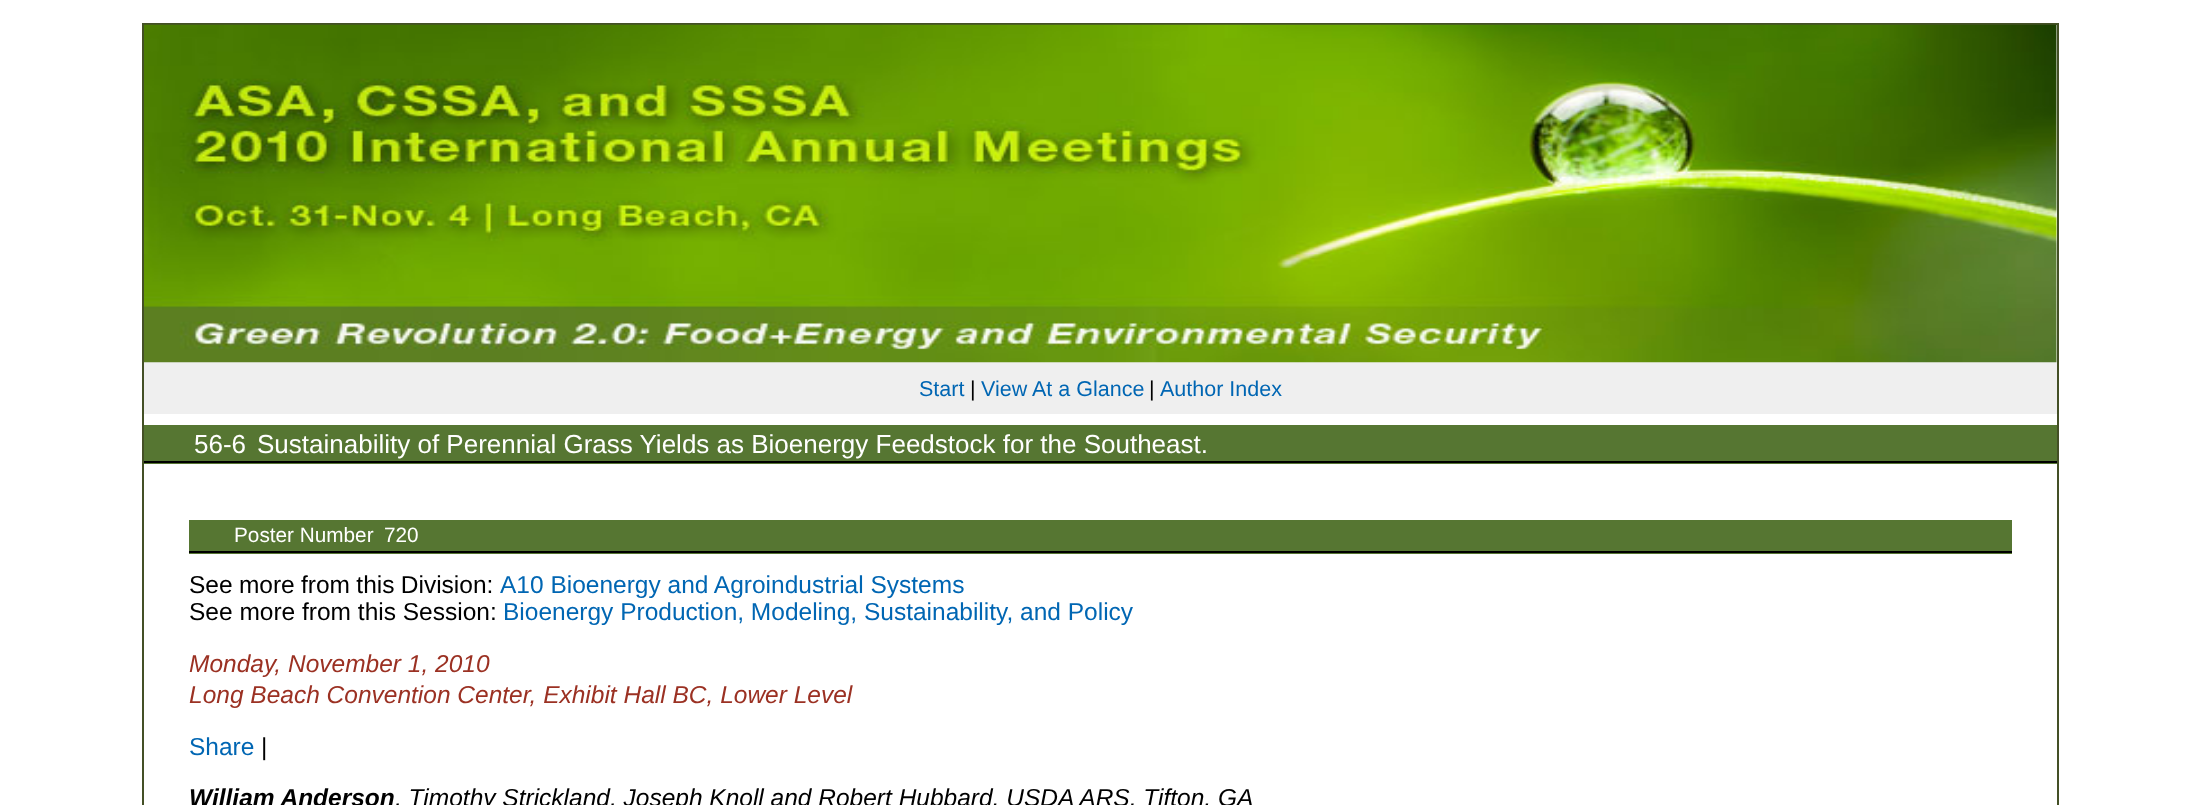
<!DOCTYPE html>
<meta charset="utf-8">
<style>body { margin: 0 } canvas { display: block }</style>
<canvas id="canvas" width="2200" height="805"></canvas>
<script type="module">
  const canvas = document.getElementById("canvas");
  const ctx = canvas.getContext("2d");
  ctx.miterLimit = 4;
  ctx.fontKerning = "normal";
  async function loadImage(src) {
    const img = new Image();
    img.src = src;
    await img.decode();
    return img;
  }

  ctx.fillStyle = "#ffffff";
  ctx.fillRect(0, 0, 2200, 805);
  ctx.strokeStyle = "#445026";
  ctx.lineWidth = 2;
  ctx.strokeRect(143, 24, 1915, 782);
  ctx.fillStyle = "#efefef";
  ctx.fillRect(144, 362, 1913, 52);
  ctx.drawImage(await loadImage("img1.png"), 144, 24, 1913, 339);
  ctx.font = "21.5px Liberation Sans";
  ctx.fillStyle = "#0066b3";
  ctx.fillText("Start", 919, 396);
  ctx.fillStyle = "#000000";
  ctx.fillText("|", 970, 396);
  ctx.fillStyle = "#0066b3";
  ctx.fillText("View At a Glance", 981, 396);
  ctx.fillStyle = "#000000";
  ctx.fillText("|", 1149, 396);
  ctx.fillStyle = "#0066b3";
  ctx.fillText("Author Index", 1160, 396);
  ctx.fillStyle = "#567632";
  ctx.fillRect(144, 425, 1913, 39);
  ctx.fillStyle = "#000000";
  ctx.fillRect(144, 461, 1913, 2);
  ctx.font = "26px Liberation Sans";
  ctx.fillStyle = "#ffffff";
  ctx.fillText("56-6", 194, 453);
  ctx.fillText("Sustainability of Perennial Grass Yields as Bioenergy Feedstock for the Southeast.", 257, 453);
  ctx.fillStyle = "#567632";
  ctx.fillRect(189, 520, 1823, 34);
  ctx.fillStyle = "#000000";
  ctx.fillRect(189, 551, 1823, 2);
  ctx.font = "20.75px Liberation Sans";
  ctx.fillStyle = "#ffffff";
  ctx.fillText("Poster Number", 234, 542);
  ctx.fillText("720", 384, 542);
  ctx.wordSpacing = "-0.5px";
  ctx.font = "24.5px Liberation Sans";
  ctx.fillStyle = "#000000";
  ctx.fillText("See more from this Division:", 189, 593);
  ctx.wordSpacing = "0px";
  ctx.fillStyle = "#0066b3";
  ctx.fillText("A10 Bioenergy and Agroindustrial Systems", 500, 593);
  ctx.fillStyle = "#000000";
  ctx.fillText("See more from this Session:", 189, 620);
  ctx.fillStyle = "#0066b3";
  ctx.fillText("Bioenergy Production, Modeling, Sustainability, and Policy", 503, 620);
  ctx.font = "italic 24.5px Liberation Sans";
  ctx.fillStyle = "#9b3123";
  ctx.fillText("Monday, November 1, 2010", 189, 672);
  ctx.fillText("Long Beach Convention Center, Exhibit Hall BC, Lower Level", 189, 703);
  ctx.font = "24.5px Liberation Sans";
  ctx.fillStyle = "#0066b3";
  ctx.fillText("Share", 189, 755);
  ctx.fillStyle = "#000000";
  ctx.fillText("|", 261, 755);
  ctx.font = "italic bold 24.5px Liberation Sans";
  ctx.fillText("William Anderson", 189, 806);
  ctx.font = "italic 24.5px Liberation Sans";
  ctx.fillText(", Timothy Strickland, Joseph Knoll and Robert Hubbard, USDA ARS, Tifton, GA", 395, 806);
</script>
